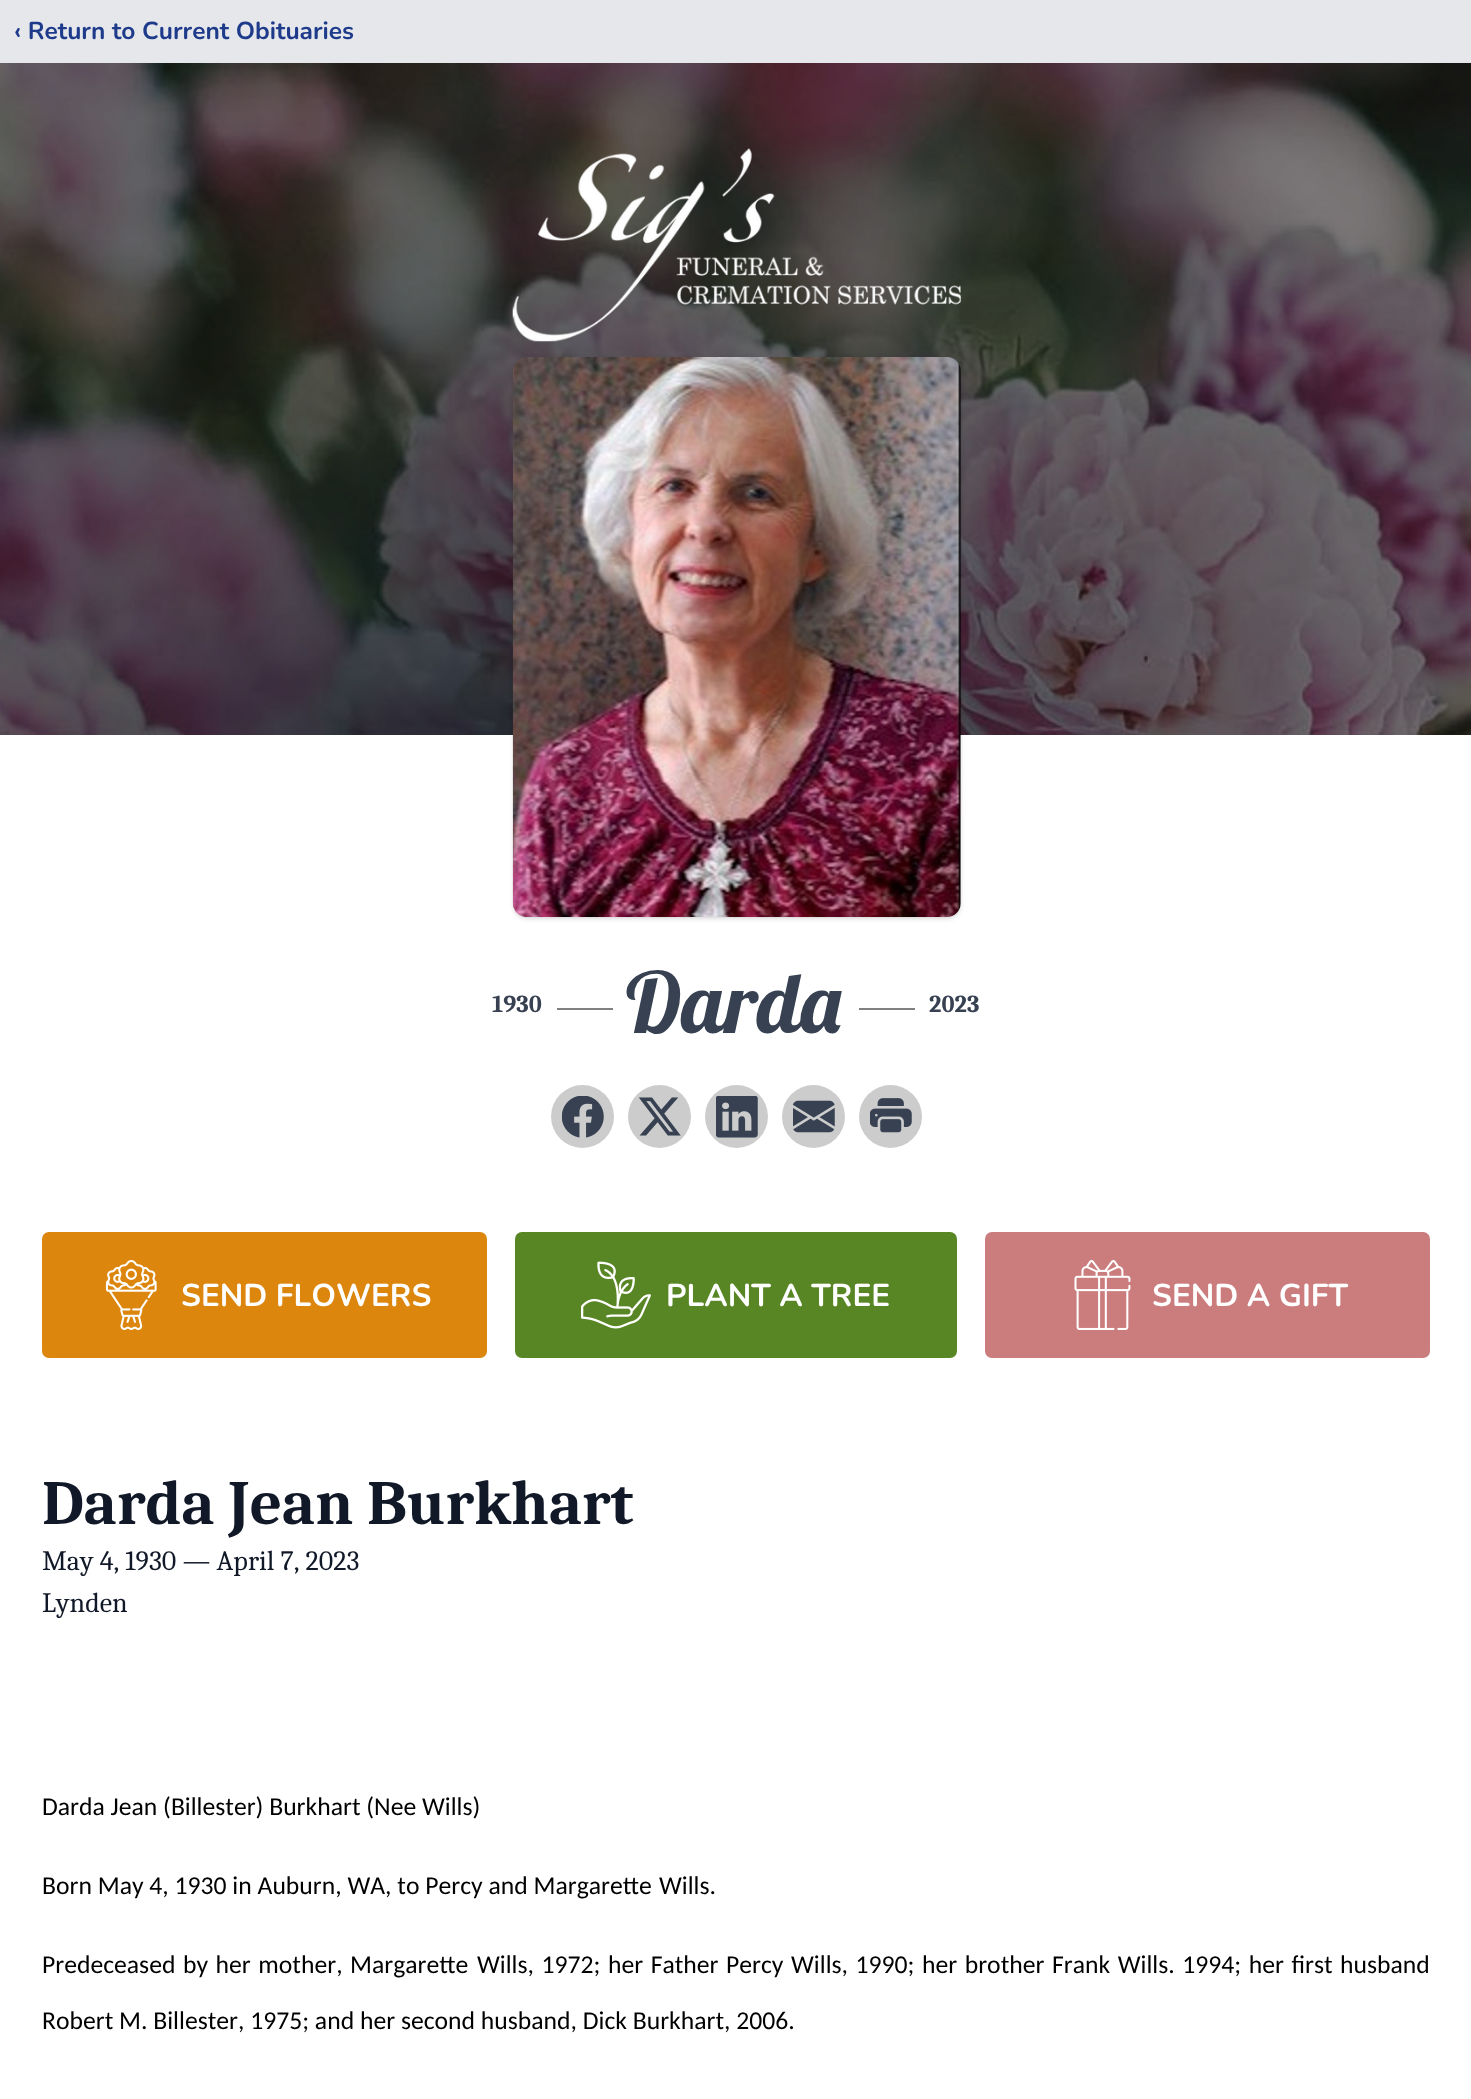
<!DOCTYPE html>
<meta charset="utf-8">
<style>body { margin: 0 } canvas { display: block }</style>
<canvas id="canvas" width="1471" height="2099"></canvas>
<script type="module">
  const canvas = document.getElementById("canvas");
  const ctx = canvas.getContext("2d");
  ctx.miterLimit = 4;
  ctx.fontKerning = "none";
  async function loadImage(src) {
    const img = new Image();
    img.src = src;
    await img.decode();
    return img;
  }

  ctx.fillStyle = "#ffffff";
  ctx.fillRect(0, 0, 1471, 2099);
  ctx.fillStyle = "#e5e7eb";
  ctx.fillRect(0, 0, 1471, 63);
  ctx.font = "bold 24.5px Nunito";
  ctx.fillStyle = "#1e3a8a";
  ctx.fillText("‹ Return to Current Obituaries", 14, 39);
  ctx.drawImage(await loadImage("img1.png"), 0, 63, 1471, 672);
  ctx.drawImage(await loadImage("img2.png"), 512, 148, 449, 194);
  ctx.fillStyle = "rgba(0, 0, 0, 0.1)";
  ctx.filter = "blur(2px)";
  ctx.beginPath();
  ctx.roundRect(515, 361, 444, 556, 12);
  ctx.fill();
  ctx.filter = "none";
  ctx.filter = "blur(2.5px)";
  ctx.beginPath();
  ctx.roundRect(513, 359, 448, 560, 14);
  ctx.fill();
  ctx.filter = "none";
  ctx.drawImage(await loadImage("img3.png"), 512, 357, 449, 560);
  ctx.font = "bold 24.5px Caladea";
  ctx.fillStyle = "#374151";
  ctx.fillText("1930", 492, 1012);
  ctx.fillStyle = "#808080";
  ctx.fillRect(557, 1008, 56, 2);
  ctx.font = "84px Lobster";
  ctx.fillStyle = "#374151";
  ctx.fillText("Darda", 626, 1033);
  ctx.fillStyle = "#808080";
  ctx.fillRect(859, 1008, 56, 2);
  ctx.font = "bold 24.5px Caladea";
  ctx.fillStyle = "#374151";
  ctx.fillText("2023", 929, 1012);
  ctx.fillStyle = "#cccccc";
  ctx.beginPath();
  ctx.arc(582.5, 1116.5, 31.5, 0, Math.PI * 2);
  ctx.fill();
  ctx.drawImage(await loadImage("img4.png"), 562, 1096, 42, 42);
  ctx.beginPath();
  ctx.arc(659.5, 1116.5, 31.5, 0, Math.PI * 2);
  ctx.fill();
  ctx.drawImage(await loadImage("img5.png"), 639, 1097, 42, 39);
  ctx.beginPath();
  ctx.arc(736.5, 1116.5, 31.5, 0, Math.PI * 2);
  ctx.fill();
  ctx.drawImage(await loadImage("img6.png"), 716, 1096, 42, 42);
  ctx.beginPath();
  ctx.arc(813.5, 1116.5, 31.5, 0, Math.PI * 2);
  ctx.fill();
  ctx.drawImage(await loadImage("img7.png"), 793, 1100, 42, 33);
  ctx.beginPath();
  ctx.arc(890.5, 1116.5, 31.5, 0, Math.PI * 2);
  ctx.fill();
  ctx.drawImage(await loadImage("img8.png"), 870, 1098, 42, 35);
  ctx.fillStyle = "#dc860d";
  ctx.beginPath();
  ctx.roundRect(42, 1232, 445, 126, 7);
  ctx.fill();
  ctx.drawImage(await loadImage("img9.png"), 105, 1260, 52, 70);
  ctx.font = "bold 31.5px Nunito";
  ctx.fillStyle = "#ffffff";
  ctx.fillText("SEND FLOWERS", 181, 1306);
  ctx.fillStyle = "#588624";
  ctx.beginPath();
  ctx.roundRect(515, 1232, 442, 126, 7);
  ctx.fill();
  ctx.drawImage(await loadImage("img10.png"), 581, 1261, 70, 68);
  ctx.fillStyle = "#ffffff";
  ctx.fillText("PLANT A TREE", 666, 1306);
  ctx.fillStyle = "#cb7c7c";
  ctx.beginPath();
  ctx.roundRect(985, 1232, 445, 126, 7);
  ctx.fill();
  ctx.drawImage(await loadImage("img11.png"), 1074, 1260, 57, 70);
  ctx.fillStyle = "#ffffff";
  ctx.fillText("SEND A GIFT", 1152, 1306);
  ctx.font = "bold 63px Caladea";
  ctx.fillStyle = "#111827";
  ctx.fillText("Darda Jean Burkhart", 42, 1524);
  ctx.font = "28px Caladea";
  ctx.fillText("May 4, 1930 — April 7, 2023", 42, 1570);
  ctx.fillText("Lynden", 42, 1612);
  ctx.font = "25.67px Carlito";
  ctx.fillStyle = "#000000";
  ctx.fillText("Darda Jean (Billester) Burkhart (Nee Wills)", 42, 1815);
  ctx.fillText("Born May 4, 1930 in Auburn, WA, to Percy and Margarette", 42, 1894);
  ctx.fillText("Wills.", 659, 1894);
  ctx.wordSpacing = "1.75px";
  ctx.fillText("Predeceased by her mother, Margarette", 42, 1973);
  ctx.fillText("Wills, 1972; her Father Percy Wills, 1990; her brother Frank Wills. 1994; her first husband", 477, 1973);
  ctx.wordSpacing = "0px";
  ctx.fillText("Robert M. Billester, 1975; and her second husband, Dick Burkhart, 2006.", 42, 2029);
</script>
